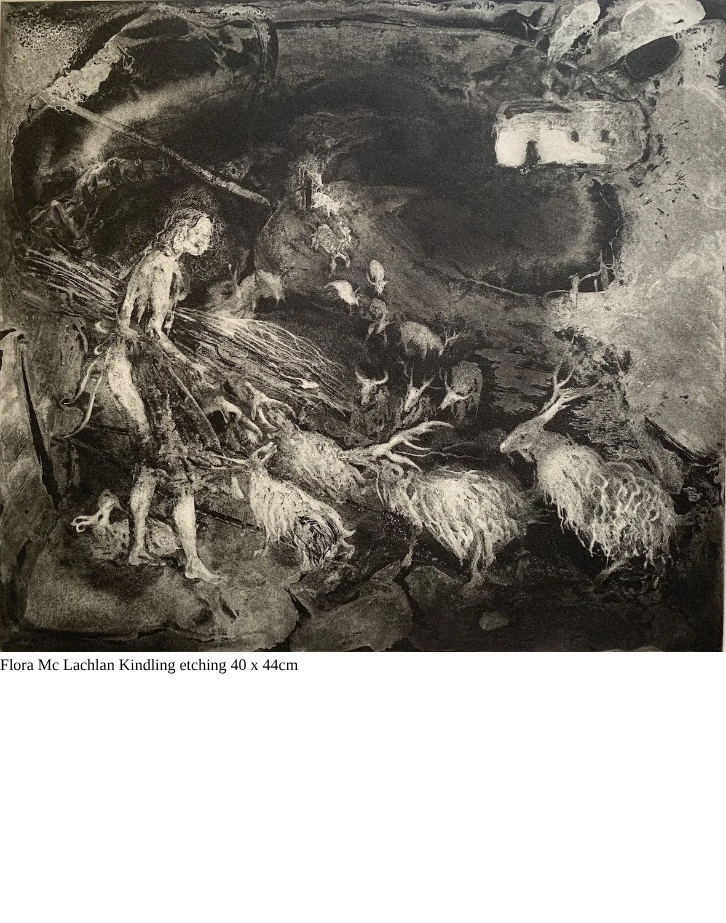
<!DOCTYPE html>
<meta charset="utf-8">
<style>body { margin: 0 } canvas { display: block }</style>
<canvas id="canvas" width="726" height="923"></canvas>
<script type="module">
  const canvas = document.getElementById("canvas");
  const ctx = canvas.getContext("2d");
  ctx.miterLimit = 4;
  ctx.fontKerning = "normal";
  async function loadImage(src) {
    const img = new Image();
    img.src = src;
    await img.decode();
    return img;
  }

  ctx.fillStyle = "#ffffff";
  ctx.fillRect(0, 0, 726, 923);
  ctx.drawImage(await loadImage("img1.png"), 0, 0, 726, 652);
  ctx.font = "16px Liberation Serif";
  ctx.fillStyle = "#000000";
  ctx.fillText("Flora Mc Lachlan Kindling etching 40 x 44cm", 0, 670);
</script>
